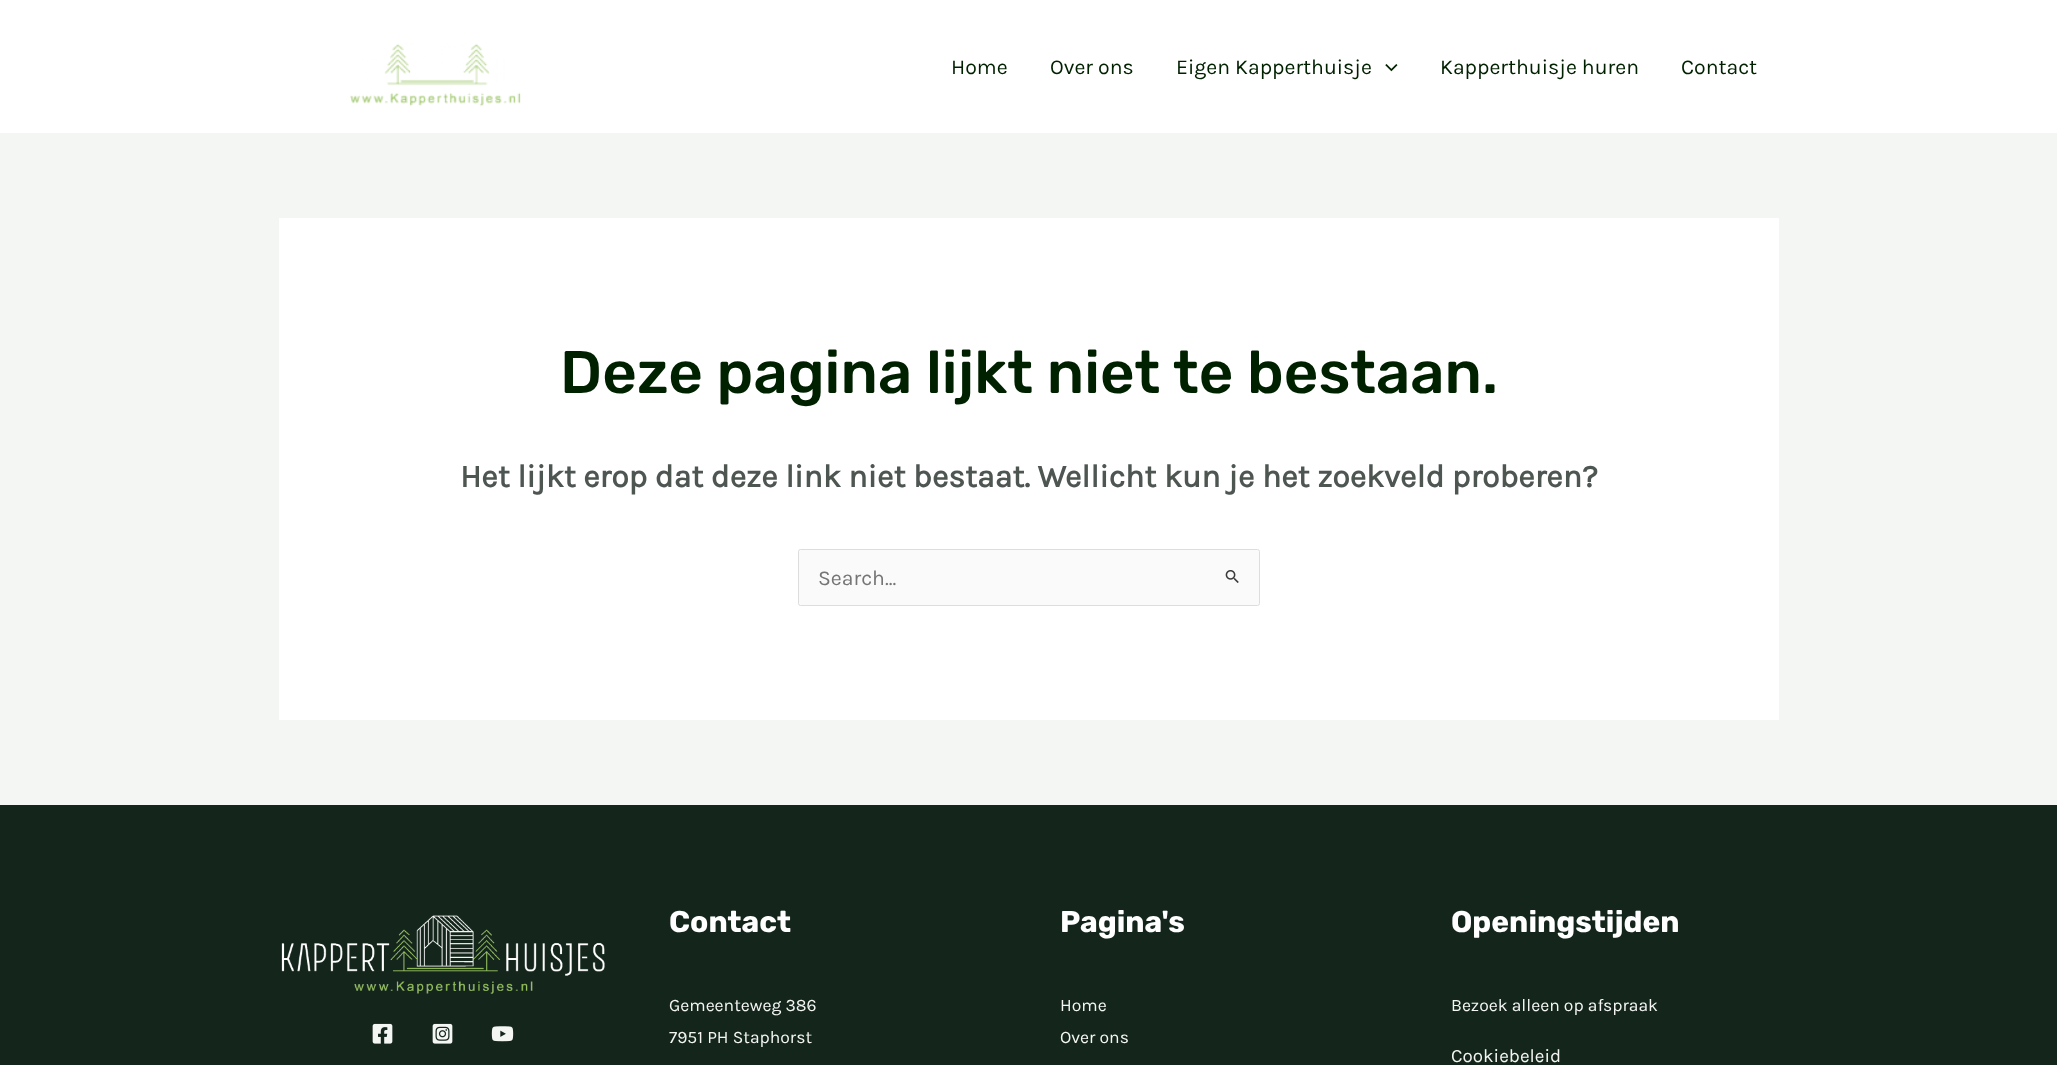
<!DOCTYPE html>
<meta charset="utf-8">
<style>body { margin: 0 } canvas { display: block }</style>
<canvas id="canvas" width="2057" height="1065"></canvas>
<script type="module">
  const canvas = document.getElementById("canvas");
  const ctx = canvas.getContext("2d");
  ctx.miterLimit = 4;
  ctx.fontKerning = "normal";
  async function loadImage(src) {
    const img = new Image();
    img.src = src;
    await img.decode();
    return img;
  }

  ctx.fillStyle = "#f4f6f4";
  ctx.fillRect(0, 0, 2057, 1065);
  ctx.fillStyle = "#ffffff";
  ctx.fillRect(0, 0, 2057, 133);
  ctx.drawImage(await loadImage("img1.png"), 350, 43, 171, 64);
  ctx.font = "21.25px Karla";
  ctx.fillStyle = "#002100";
  ctx.fillText("Home", 951, 74);
  ctx.fillText("Over ons", 1050, 74);
  ctx.fillText("Eigen Kapperthuisje", 1176, 74);
  ctx.drawImage(await loadImage("img2.png"), 1385, 64, 13, 8);
  ctx.fillText("Kapperthuisje huren", 1440, 74);
  ctx.fillText("Contact", 1681, 74);
  ctx.fillStyle = "#ffffff";
  ctx.fillRect(279, 218, 1500, 502);
  ctx.font = "500 60px Rubik";
  ctx.fillStyle = "#002100";
  ctx.fillText("Deze pagina lijkt niet te bestaan.", 560, 393);
  ctx.font = "bold 31.9px Karla";
  ctx.fillStyle = "#4e5652";
  ctx.fillText("Het lijkt erop dat deze link niet bestaat. Wellicht kun je het zoekveld proberen?", 460, 487);
  ctx.fillStyle = "#fafafa";
  ctx.beginPath();
  ctx.roundRect(798.5, 549.5, 461, 56, 2);
  ctx.fill();
  ctx.strokeStyle = "#dddddd";
  ctx.stroke();
  ctx.font = "21.25px Karla";
  ctx.fillStyle = "#757575";
  ctx.fillText("Search...", 818, 585);
  ctx.drawImage(await loadImage("img3.png"), 1225, 570, 14, 13);
  ctx.fillStyle = "#14261c";
  ctx.fillRect(0, 805, 2057, 260);
  ctx.drawImage(await loadImage("img4.png"), 281, 915, 324, 79);
  ctx.drawImage(await loadImage("img5.png"), 372, 1023, 21, 21);
  ctx.drawImage(await loadImage("img6.png"), 432, 1023, 21, 21);
  ctx.drawImage(await loadImage("img7.png"), 491, 1026, 23, 16);
  ctx.font = "bold 30px Rubik";
  ctx.fillStyle = "#ffffff";
  ctx.fillText("Contact", 669, 932);
  ctx.font = "17.5px Karla";
  ctx.fillStyle = "#f4f6f4";
  ctx.fillText("Gemeenteweg 386", 669, 1011);
  ctx.fillText("7951 PH Staphorst", 669, 1043);
  ctx.font = "bold 30px Rubik";
  ctx.fillStyle = "#ffffff";
  ctx.fillText("Pagina's", 1060, 932);
  ctx.font = "17.5px Karla";
  ctx.fillStyle = "#f4f6f4";
  ctx.fillText("Home", 1060, 1011);
  ctx.fillText("Over ons", 1060, 1043);
  ctx.font = "bold 30px Rubik";
  ctx.fillStyle = "#ffffff";
  ctx.fillText("Openingstijden", 1451, 932);
  ctx.font = "17.5px Karla";
  ctx.fillStyle = "#f4f6f4";
  ctx.fillText("Bezoek alleen op afspraak", 1451, 1011);
  ctx.font = "18.75px Karla";
  ctx.fillText("Cookiebeleid", 1451, 1062);
</script>
